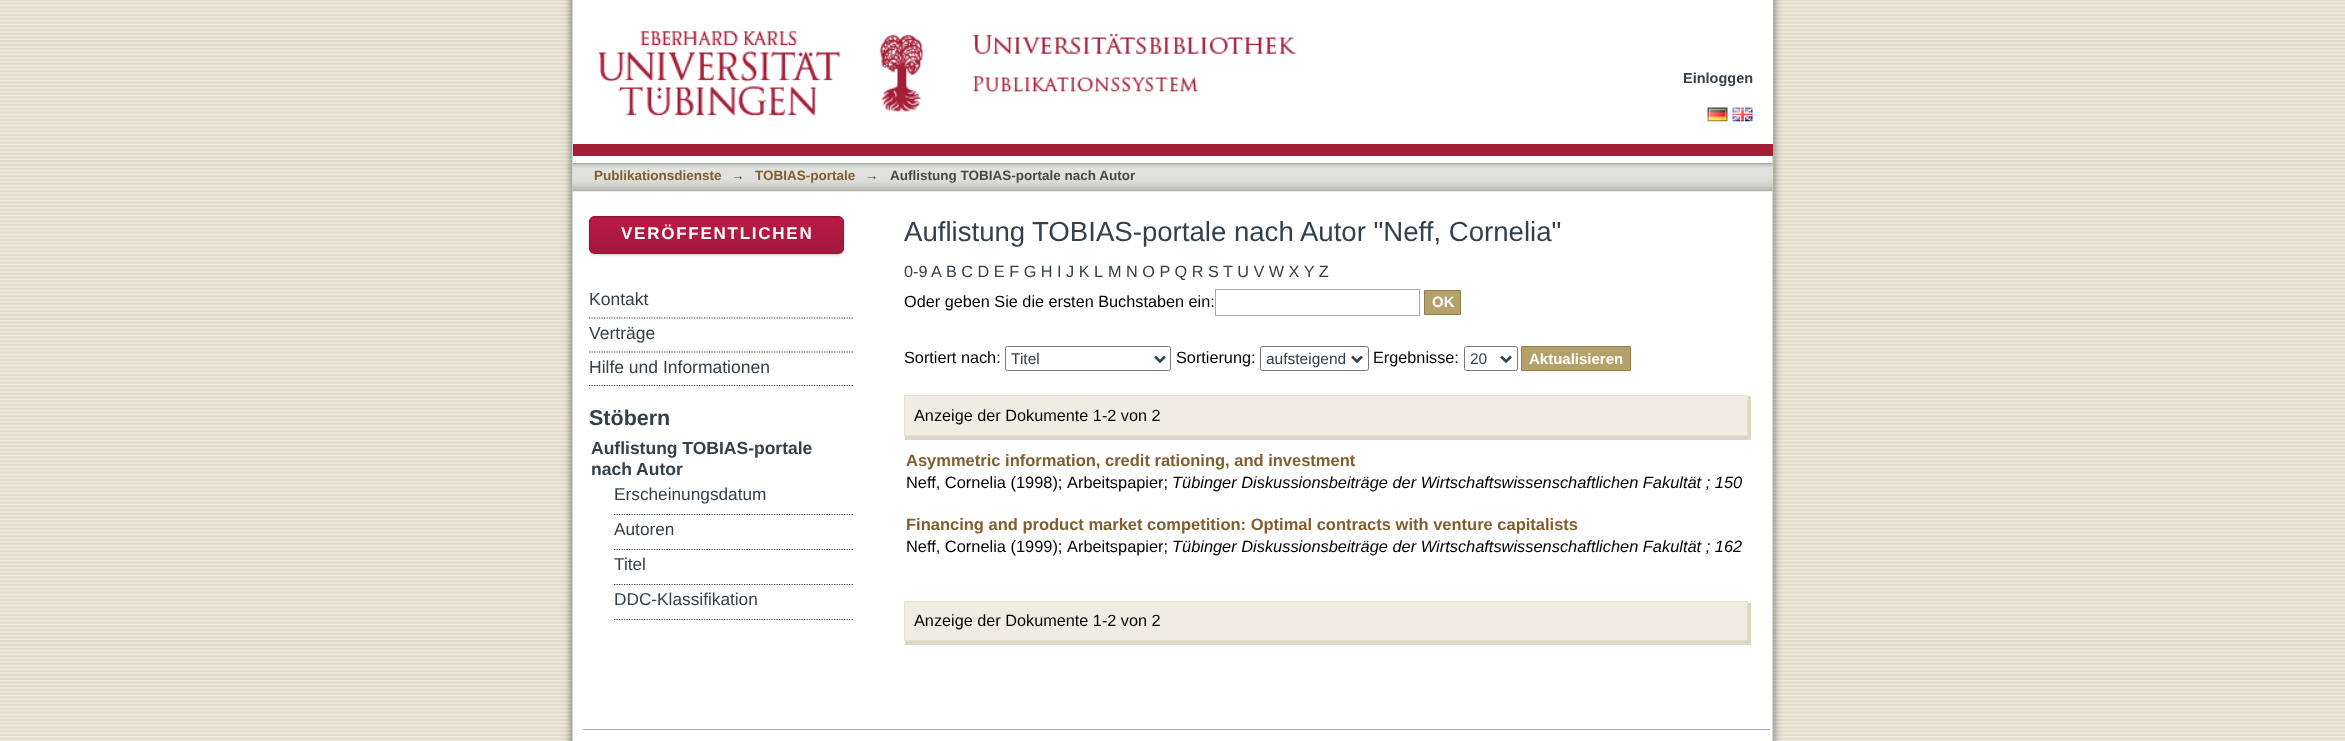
<!DOCTYPE html>
<meta charset="utf-8">
<style>body { margin: 0 } canvas { display: block }</style>
<canvas id="canvas" width="2345" height="741"></canvas>
<script type="module">
  const canvas = document.getElementById("canvas");
  const ctx = canvas.getContext("2d");
  ctx.miterLimit = 4;
  ctx.fontKerning = "normal";
  async function loadImage(src) {
    const img = new Image();
    img.src = src;
    await img.decode();
    return img;
  }
  let gradient;

  ctx.fillStyle = "#ffffff";
  ctx.fillRect(0, 0, 2345, 741);
  ctx.drawImage(await loadImage("img1.png"), 0, 0, 2345, 741);
  ctx.drawImage(await loadImage("img2.png"), 563, 0, 1219, 741);
  ctx.fillRect(1772, 0, 1, 144);
  ctx.fillStyle = "#a51e37";
  ctx.fillRect(573, 144, 1200, 12);
  ctx.drawImage(await loadImage("img3.png"), 598, 31, 325, 85);
  ctx.drawImage(await loadImage("img4.png"), 972, 33, 325, 59);
  ctx.font = "bold 14.5px Liberation Sans";
  ctx.fillStyle = "#32414b";
  ctx.fillText("Einloggen", 1683, 83);
  ctx.drawImage(await loadImage("img5.png"), 572, 163, 1201, 29);
  ctx.fillStyle = "#9cacba";
  ctx.fillRect(573, 163, 1200, 1);
  ctx.drawImage(await loadImage("img6.png"), 1707, 107, 21, 15);
  ctx.drawImage(await loadImage("img7.png"), 1732, 107, 21, 15);
  ctx.font = "bold 13.5px Liberation Sans";
  ctx.fillStyle = "#825d2d";
  ctx.fillText("Publikationsdienste", 594, 180);
  ctx.fillStyle = "#484848";
  ctx.fillText("→", 731, 180);
  ctx.fillStyle = "#825d2d";
  ctx.fillText("TOBIAS-portale", 755, 180);
  ctx.fillStyle = "#484848";
  ctx.fillText("→", 865, 180);
  ctx.fillText("Auflistung TOBIAS-portale nach Autor", 890, 180);
  ctx.fillStyle = "rgba(0, 0, 0, 0.2)";
  ctx.filter = "blur(1px)";
  ctx.beginPath();
  ctx.roundRect(589, 218, 255, 37, 6);
  ctx.fill();
  ctx.filter = "none";
  ctx.save();
  ctx.beginPath();
  ctx.roundRect(589, 216, 255, 38, 6);
  ctx.clip();
  gradient = ctx.createLinearGradient(716, 183, 716, 218);
  gradient.addColorStop(0, "#bb1a43");
  gradient.addColorStop(1, "#a2183b");
  ctx.fillStyle = gradient;
  ctx.fillRect(589, 216, 255, 2);
  gradient = ctx.createLinearGradient(716, 218, 716, 253);
  gradient.addColorStop(0, "#bb1a43");
  gradient.addColorStop(1, "#a2183b");
  ctx.fillStyle = gradient;
  ctx.fillRect(589, 218, 255, 35);
  ctx.restore();
  ctx.beginPath();
  ctx.roundRect(589.5, 216.5, 254, 37, 5.5);
  ctx.strokeStyle = "#901735";
  ctx.stroke();
  ctx.letterSpacing = "1.75px";
  ctx.font = "bold 17px Liberation Sans";
  ctx.fillStyle = "#ffffff";
  ctx.fillText("VERÖFFENTLICHEN", 621, 239);
  ctx.beginPath();
  ctx.moveTo(589, 318);
  ctx.lineTo(854, 318);
  ctx.strokeStyle = "#32414b";
  ctx.lineWidth = 1.2;
  ctx.setLineDash([1.25, 1.25]);
  ctx.stroke();
  ctx.letterSpacing = "0px";
  ctx.font = "17.5px Liberation Sans";
  ctx.fillStyle = "#32414b";
  ctx.fillText("Kontakt", 589, 305);
  ctx.beginPath();
  ctx.moveTo(589, 352);
  ctx.lineTo(854, 352);
  ctx.stroke();
  ctx.fillText("Verträge", 589, 339);
  ctx.beginPath();
  ctx.moveTo(589, 385.5);
  ctx.lineTo(854, 385.5);
  ctx.stroke();
  ctx.fillText("Hilfe und Informationen", 589, 373);
  ctx.font = "bold 21.5px Liberation Sans";
  ctx.fillText("Stöbern", 589, 425);
  ctx.font = "bold 17.5px Liberation Sans";
  ctx.fillText("Auflistung TOBIAS-portale", 591, 454);
  ctx.fillText("nach Autor", 591, 475);
  ctx.beginPath();
  ctx.moveTo(614, 514.5);
  ctx.lineTo(854, 514.5);
  ctx.stroke();
  ctx.font = "17.25px Liberation Sans";
  ctx.fillText("Erscheinungsdatum", 614, 500);
  ctx.beginPath();
  ctx.moveTo(614, 549.5);
  ctx.lineTo(854, 549.5);
  ctx.stroke();
  ctx.fillText("Autoren", 614, 535);
  ctx.beginPath();
  ctx.moveTo(614, 584.5);
  ctx.lineTo(854, 584.5);
  ctx.stroke();
  ctx.fillText("Titel", 614, 570);
  ctx.beginPath();
  ctx.moveTo(614, 619.5);
  ctx.lineTo(854, 619.5);
  ctx.stroke();
  ctx.fillText("DDC-Klassifikation", 614, 605);
  ctx.font = "27.6px Liberation Sans";
  ctx.fillText("Auflistung", 904, 241);
  ctx.fillText("TOBIAS-portale nach Autor \"Neff, Cornelia\"", 1032, 241);
  ctx.font = "16.25px Liberation Sans";
  ctx.fillText("0-9 A", 904, 277);
  ctx.fillText("B C D E F G H I J K L", 946, 277);
  ctx.fillText("M N O P Q R S T U V W X Y Z", 1108, 277);
  ctx.fillStyle = "#000000";
  ctx.fillText("Oder geben Sie die ersten Buchstaben ein:", 904, 307);
  ctx.strokeStyle = "#aaaaaa";
  ctx.lineWidth = 1;
  ctx.setLineDash([]);
  ctx.strokeRect(1215.5, 289.5, 204, 26);
  ctx.fillStyle = "#b4a069";
  ctx.beginPath();
  ctx.rect(1424.5, 290.5, 36, 24);
  ctx.fill();
  ctx.strokeStyle = "#8f7e4f";
  ctx.stroke();
  ctx.font = "bold 15px Liberation Sans";
  ctx.fillStyle = "#ffffff";
  ctx.fillText("OK", 1432, 307);
  ctx.font = "16.25px Liberation Sans";
  ctx.fillStyle = "#000000";
  ctx.fillText("Sortiert nach:", 904, 363);
  ctx.beginPath();
  ctx.roundRect(1005.5, 346.5, 165, 24, 2);
  ctx.strokeStyle = "#767676";
  ctx.stroke();
  ctx.beginPath();
  ctx.moveTo(1155, 356.5);
  ctx.lineTo(1160, 361.5);
  ctx.lineTo(1165, 356.5);
  ctx.strokeStyle = "#32414b";
  ctx.lineWidth = 2.5;
  ctx.stroke();
  ctx.font = "15.5px Liberation Sans";
  ctx.fillStyle = "#32414b";
  ctx.fillText("Titel", 1011, 364);
  ctx.font = "16.25px Liberation Sans";
  ctx.fillStyle = "#000000";
  ctx.fillText("Sortierung:", 1176, 363);
  ctx.beginPath();
  ctx.roundRect(1260.5, 346.5, 108, 24, 2);
  ctx.strokeStyle = "#767676";
  ctx.lineWidth = 1;
  ctx.stroke();
  ctx.beginPath();
  ctx.moveTo(1352, 356.5);
  ctx.lineTo(1357, 361.5);
  ctx.lineTo(1362, 356.5);
  ctx.strokeStyle = "#32414b";
  ctx.lineWidth = 2.5;
  ctx.stroke();
  ctx.font = "15.5px Liberation Sans";
  ctx.fillStyle = "#32414b";
  ctx.fillText("aufsteigend", 1266, 364);
  ctx.font = "16.25px Liberation Sans";
  ctx.fillStyle = "#000000";
  ctx.fillText("Ergebnisse:", 1373, 363);
  ctx.beginPath();
  ctx.roundRect(1464.5, 346.5, 53, 24, 2);
  ctx.strokeStyle = "#767676";
  ctx.lineWidth = 1;
  ctx.stroke();
  ctx.beginPath();
  ctx.moveTo(1501, 356.5);
  ctx.lineTo(1506, 361.5);
  ctx.lineTo(1511, 356.5);
  ctx.strokeStyle = "#32414b";
  ctx.lineWidth = 2.5;
  ctx.stroke();
  ctx.font = "15.5px Liberation Sans";
  ctx.fillStyle = "#32414b";
  ctx.fillText("20", 1470, 364);
  ctx.fillStyle = "#b4a069";
  ctx.beginPath();
  ctx.rect(1521.5, 346.5, 109, 24);
  ctx.fill();
  ctx.strokeStyle = "#8f7e4f";
  ctx.lineWidth = 1;
  ctx.stroke();
  ctx.font = "bold 15px Liberation Sans";
  ctx.fillStyle = "#ffffff";
  ctx.fillText("Aktualisieren", 1529, 364);
  ctx.fillStyle = "#ded6c4";
  ctx.filter = "blur(0.5px)";
  ctx.beginPath();
  ctx.rect(905, 396, 846, 44);
  ctx.fill();
  ctx.filter = "none";
  ctx.fillStyle = "#f0ece1";
  ctx.beginPath();
  ctx.rect(904.5, 395.5, 843, 40);
  ctx.fill();
  ctx.strokeStyle = "#e6e0d4";
  ctx.stroke();
  ctx.font = "16.25px Liberation Sans";
  ctx.fillStyle = "#000000";
  ctx.fillText("Anzeige der Dokumente 1-2 von 2", 914, 421);
  ctx.font = "bold 16.5px Liberation Sans";
  ctx.fillStyle = "#825d2d";
  ctx.fillText("Asymmetric information, credit rationing, and investment", 906, 466);
  ctx.font = "16.4px Liberation Sans";
  ctx.fillStyle = "#000000";
  ctx.fillText("Neff, Cornelia (1998);", 906, 488);
  ctx.fillText("Arbeitspapier;", 1067, 488);
  ctx.font = "italic 16.4px Liberation Sans";
  ctx.fillText("Tübinger Diskussionsbeiträge der Wirtschaftswissenschaftlichen Fakultät ; 150", 1172, 488);
  ctx.font = "bold 16.5px Liberation Sans";
  ctx.fillStyle = "#825d2d";
  ctx.fillText("Financing and product market competition: Optimal contracts with venture capitalists", 906, 530);
  ctx.font = "16.4px Liberation Sans";
  ctx.fillStyle = "#000000";
  ctx.fillText("Neff, Cornelia (1999);", 906, 552);
  ctx.fillText("Arbeitspapier;", 1067, 552);
  ctx.font = "italic 16.4px Liberation Sans";
  ctx.fillText("Tübinger Diskussionsbeiträge der Wirtschaftswissenschaftlichen Fakultät ; 162", 1172, 552);
  ctx.fillStyle = "#ded6c4";
  ctx.filter = "blur(0.5px)";
  ctx.beginPath();
  ctx.rect(905, 603, 846, 42);
  ctx.fill();
  ctx.filter = "none";
  ctx.fillStyle = "#f0ece1";
  ctx.beginPath();
  ctx.rect(904.5, 601.5, 843, 39);
  ctx.fill();
  ctx.stroke();
  ctx.font = "16.25px Liberation Sans";
  ctx.fillStyle = "#000000";
  ctx.fillText("Anzeige der Dokumente 1-2 von 2", 914, 626);
  ctx.fillStyle = "#9cacba";
  ctx.fillRect(583, 729, 1187, 1);
</script>
